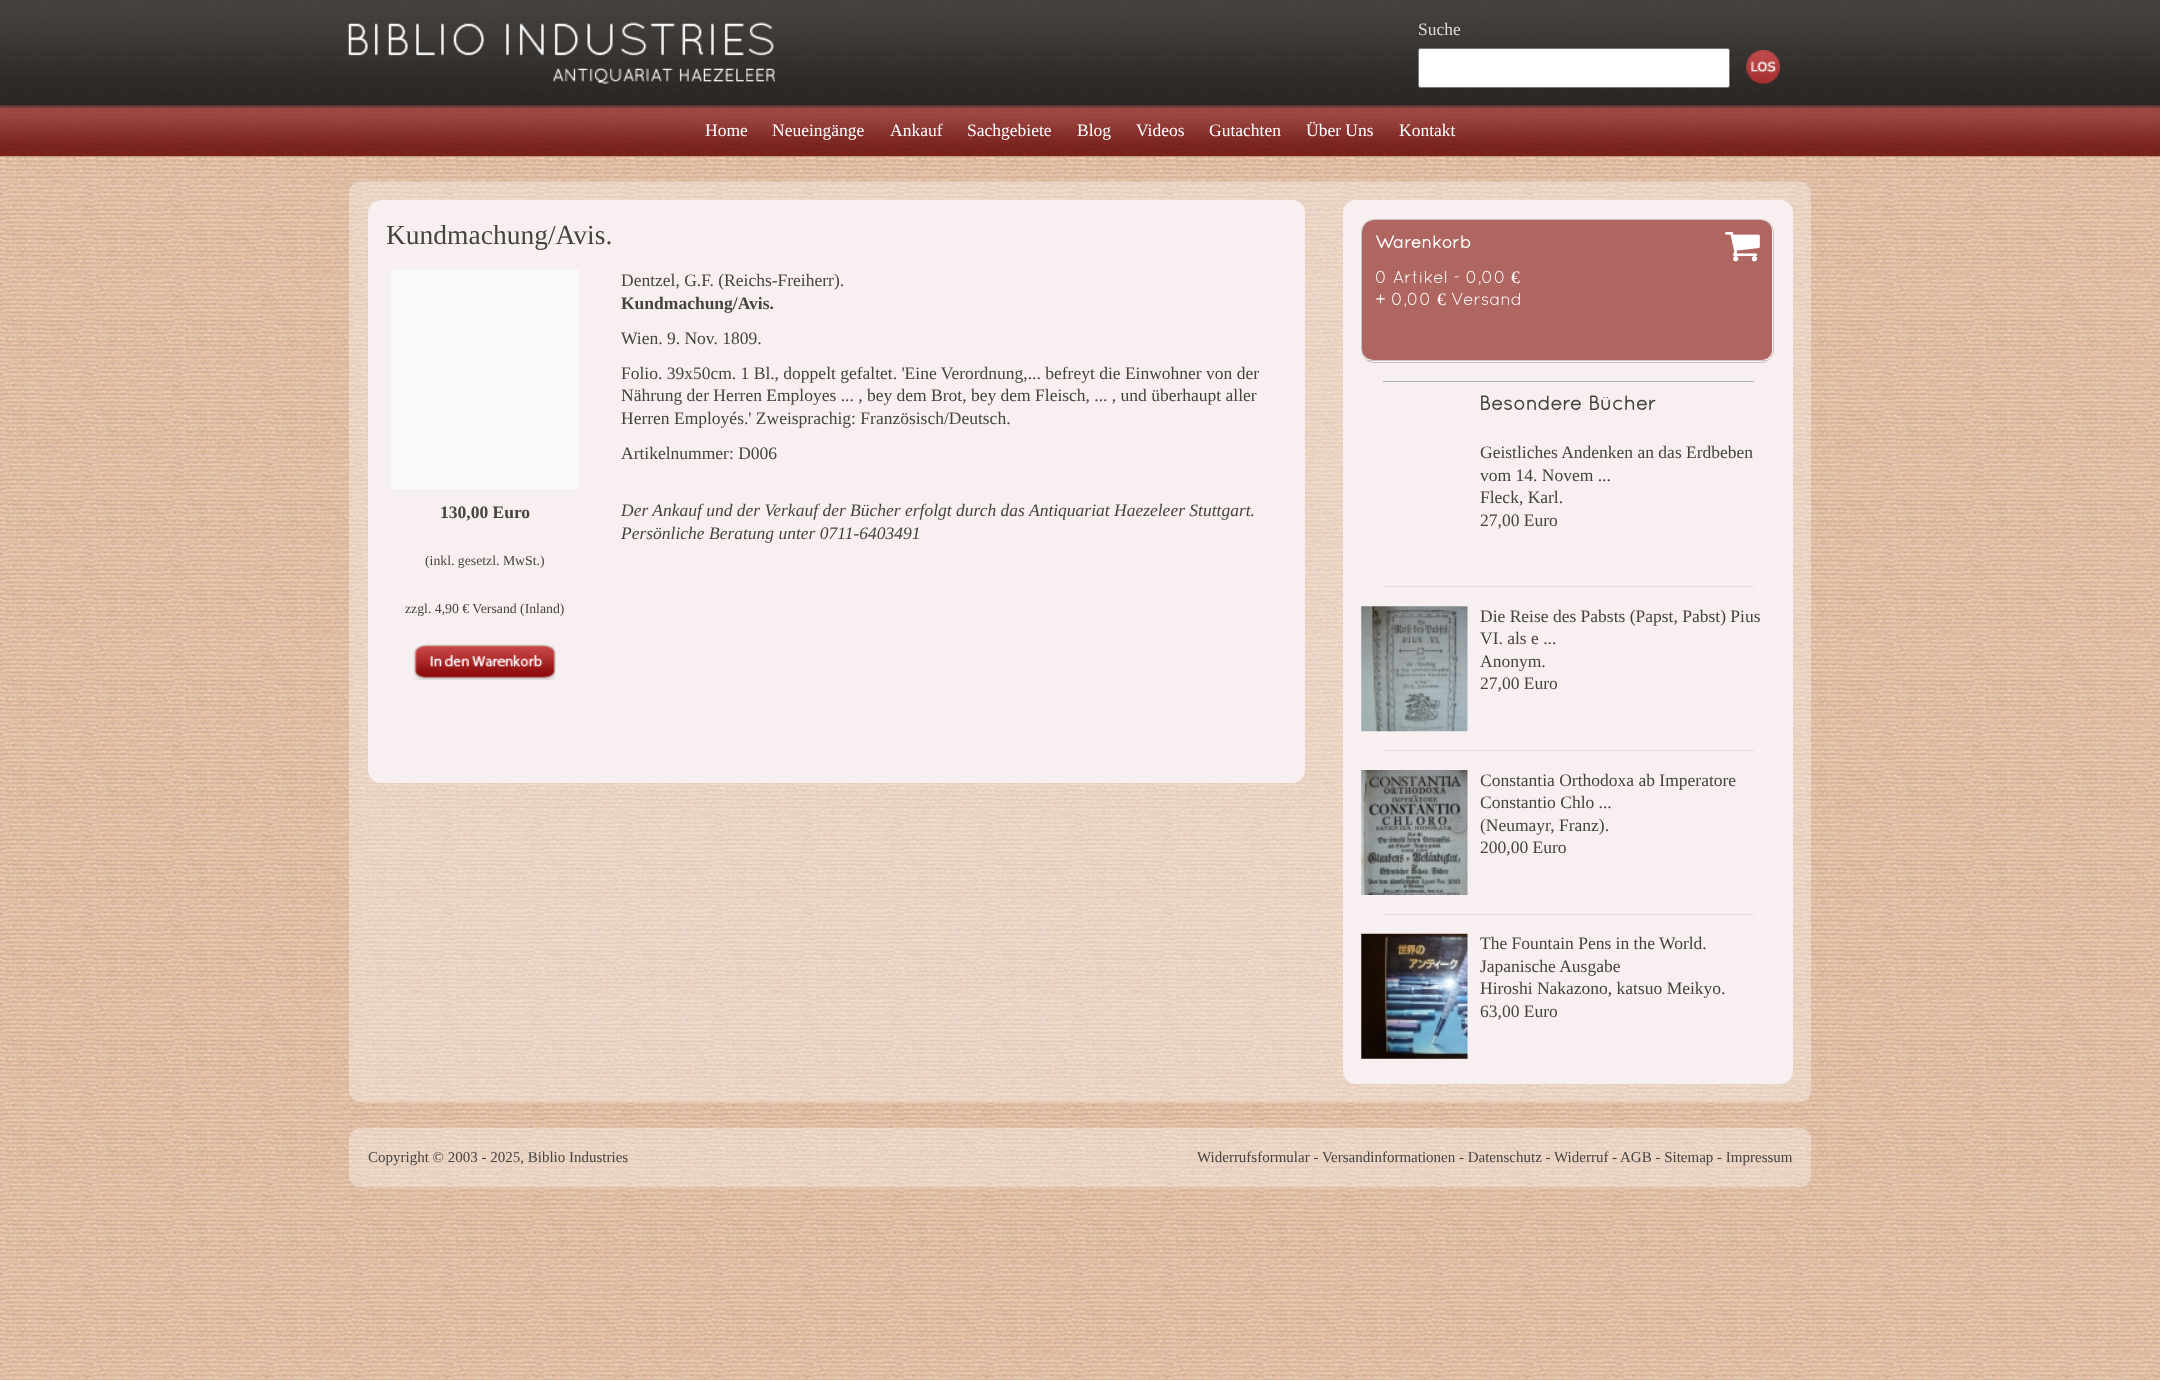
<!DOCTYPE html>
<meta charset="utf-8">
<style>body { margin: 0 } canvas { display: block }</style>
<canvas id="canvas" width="2160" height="1380"></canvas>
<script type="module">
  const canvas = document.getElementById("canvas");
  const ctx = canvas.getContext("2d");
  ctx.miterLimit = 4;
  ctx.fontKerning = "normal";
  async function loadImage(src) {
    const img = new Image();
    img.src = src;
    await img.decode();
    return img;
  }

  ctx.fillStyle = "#ffffff";
  ctx.fillRect(0, 0, 2160, 1380);
  ctx.drawImage(await loadImage("img1.png"), 0, 1188, 2160, 192);
  ctx.drawImage(await loadImage("img2.png"), 0, 0, 2160, 1188);
  ctx.drawImage(await loadImage("img3.png"), 0, 0, 2160, 107);
  ctx.drawImage(await loadImage("img4.png"), 348, 22, 427, 62);
  ctx.drawImage(await loadImage("img5.png"), 1746, 50, 34, 34);
  ctx.font = "17.5px Liberation Serif";
  ctx.fillStyle = "#dddddd";
  ctx.fillText("Suche", 1418, 35);
  ctx.fillStyle = "#ffffff";
  ctx.beginPath();
  ctx.roundRect(1418.5, 48.5, 311, 39, 2);
  ctx.fill();
  ctx.strokeStyle = "#767676";
  ctx.stroke();
  ctx.drawImage(await loadImage("img6.png"), 0, 106, 2160, 51);
  ctx.fillText("Home", 705, 136);
  ctx.fillText("Neueingänge", 772, 136);
  ctx.fillText("Ankauf", 890, 136);
  ctx.fillText("Sachgebiete", 967, 136);
  ctx.fillText("Blog", 1077, 136);
  ctx.fillText("Videos", 1136, 136);
  ctx.fillText("Gutachten", 1209, 136);
  ctx.fillText("Über Uns", 1306, 136);
  ctx.fillText("Kontakt", 1399, 136);
  ctx.drawImage(await loadImage("img7.png"), 349, 181, 1462, 922);
  ctx.fillStyle = "#f8f0f0";
  ctx.beginPath();
  ctx.roundRect(368, 200, 937, 583, 13);
  ctx.fill();
  ctx.font = "27.5px Liberation Serif";
  ctx.fillStyle = "#46433f";
  ctx.fillText("Kundmachung/Avis.", 386, 244);
  ctx.font = "17.5px Liberation Serif";
  ctx.fillText("Dentzel, G.F. (Reichs-Freiherr).", 621, 286);
  ctx.font = "bold 17.5px Liberation Serif";
  ctx.fillText("Kundmachung/Avis.", 621, 309);
  ctx.font = "17.5px Liberation Serif";
  ctx.fillText("Wien. 9. Nov. 1809.", 621, 344);
  ctx.fillText("Folio. 39x50cm. 1 Bl., doppelt gefaltet. 'Eine Verordnung,... befreyt die Einwohner von der", 621, 379);
  ctx.fillText("Nährung der Herren Employes ... , bey dem Brot, bey dem Fleisch, ... , und überhaupt aller", 621, 401);
  ctx.fillText("Herren Employés.' Zweisprachig: Französisch/Deutsch.", 621, 424);
  ctx.fillText("Artikelnummer: D006", 621, 459);
  ctx.font = "italic 17.5px Liberation Serif";
  ctx.fillText("Der Ankauf und der Verkauf der Bücher erfolgt durch das Antiquariat Haezeleer Stuttgart.", 621, 516);
  ctx.fillText("Persönliche Beratung unter 0711-6403491", 621, 539);
  ctx.fillStyle = "#f9f9f9";
  ctx.fillRect(391, 270, 188, 219);
  ctx.font = "bold 17.5px Liberation Serif";
  ctx.fillStyle = "#46433f";
  ctx.fillText("130,00 Euro", 440, 518);
  ctx.font = "13.75px Liberation Serif";
  ctx.fillText("(inkl. gesetzl. MwSt.)", 425, 565);
  ctx.fillText("zzgl. 4,90 € Versand (Inland)", 405, 613);
  ctx.drawImage(await loadImage("img8.png"), 413, 644, 143, 36);
  ctx.fillStyle = "#f8f0f0";
  ctx.beginPath();
  ctx.roundRect(1343, 200, 450, 884, 13);
  ctx.fill();
  ctx.fillStyle = "#af6560";
  ctx.beginPath();
  ctx.moveTo(1374, 220);
  ctx.lineTo(1761, 220);
  ctx.bezierCurveTo(1767, 220, 1772, 225, 1772, 231);
  ctx.lineTo(1772, 350);
  ctx.bezierCurveTo(1772, 356, 1767, 360, 1761, 360);
  ctx.lineTo(1374, 360);
  ctx.bezierCurveTo(1368, 360, 1362, 356, 1362, 350);
  ctx.lineTo(1362, 231);
  ctx.bezierCurveTo(1362, 225, 1368, 220, 1374, 220);
  ctx.closePath();
  ctx.fill();
  ctx.beginPath();
  ctx.roundRect(1361.5, 219.5, 412, 143, 12.5);
  ctx.strokeStyle = "#cac5c4";
  ctx.stroke();
  ctx.fillStyle = "#cac5c4";
  ctx.fillRect(1368, 360, 400, 1);
  ctx.font = "bold 17.5px Quicksand";
  ctx.fillStyle = "#ffffff";
  ctx.fillText("Warenkorb", 1375, 248);
  ctx.drawImage(await loadImage("img9.png"), 1725, 231, 35, 31);
  ctx.font = "17.5px Quicksand";
  ctx.fillText("0 Artikel - 0,00", 1375, 283);
  ctx.font = "17.5px Liberation Serif";
  ctx.fillText("€", 1511, 283);
  ctx.font = "17.5px Quicksand";
  ctx.fillText("+ 0,00", 1375, 305);
  ctx.font = "17.5px Liberation Serif";
  ctx.fillText("€", 1437, 305);
  ctx.font = "17.5px Quicksand";
  ctx.fillText("Versand", 1451, 305);
  ctx.fillStyle = "#b2b2b2";
  ctx.fillRect(1383, 381, 371, 1);
  ctx.font = "bold 20px Quicksand";
  ctx.fillStyle = "#46433f";
  ctx.fillText("Besondere Bücher", 1479, 410);
  ctx.font = "17.5px Liberation Serif";
  ctx.fillText("Geistliches Andenken an das Erdbeben", 1480, 458);
  ctx.fillText("vom 14. Novem ...", 1480, 481);
  ctx.fillText("Fleck, Karl.", 1480, 503);
  ctx.fillText("27,00 Euro", 1480, 526);
  ctx.fillStyle = "#e0dede";
  ctx.fillRect(1383, 586, 371, 1);
  ctx.drawImage(await loadImage("img10.png"), 1361, 606, 107, 126);
  ctx.fillStyle = "#46433f";
  ctx.fillText("Die Reise des Pabsts (Papst, Pabst) Pius", 1480, 622);
  ctx.fillText("VI. als e ...", 1480, 644);
  ctx.fillText("Anonym.", 1480, 667);
  ctx.fillText("27,00 Euro", 1480, 689);
  ctx.fillStyle = "#e0dede";
  ctx.fillRect(1383, 750, 371, 1);
  ctx.drawImage(await loadImage("img11.png"), 1361, 770, 107, 125);
  ctx.fillStyle = "#46433f";
  ctx.fillText("Constantia Orthodoxa ab Imperatore", 1480, 786);
  ctx.fillText("Constantio Chlo ...", 1480, 808);
  ctx.fillText("(Neumayr, Franz).", 1480, 831);
  ctx.fillText("200,00 Euro", 1480, 853);
  ctx.fillStyle = "#e0dede";
  ctx.fillRect(1383, 914, 371, 1);
  ctx.drawImage(await loadImage("img12.png"), 1361, 933, 107, 126);
  ctx.fillStyle = "#46433f";
  ctx.fillText("The Fountain Pens in the World.", 1480, 949);
  ctx.fillText("Japanische Ausgabe", 1480, 972);
  ctx.fillText("Hiroshi Nakazono, katsuo Meikyo.", 1480, 994);
  ctx.fillText("63,00 Euro", 1480, 1017);
  ctx.drawImage(await loadImage("img13.png"), 349, 1127, 1462, 61);
  ctx.font = "15px Liberation Serif";
  ctx.fillText("Copyright © 2003 - 2025, Biblio Industries", 368, 1162);
  ctx.fillText("Widerrufsformular - Versandinformationen - Datenschutz - Widerruf", 1197, 1162);
  ctx.fillText("-", 1612, 1162);
  ctx.fillText("AGB - Sitemap - Impressum", 1620, 1162);
</script>
